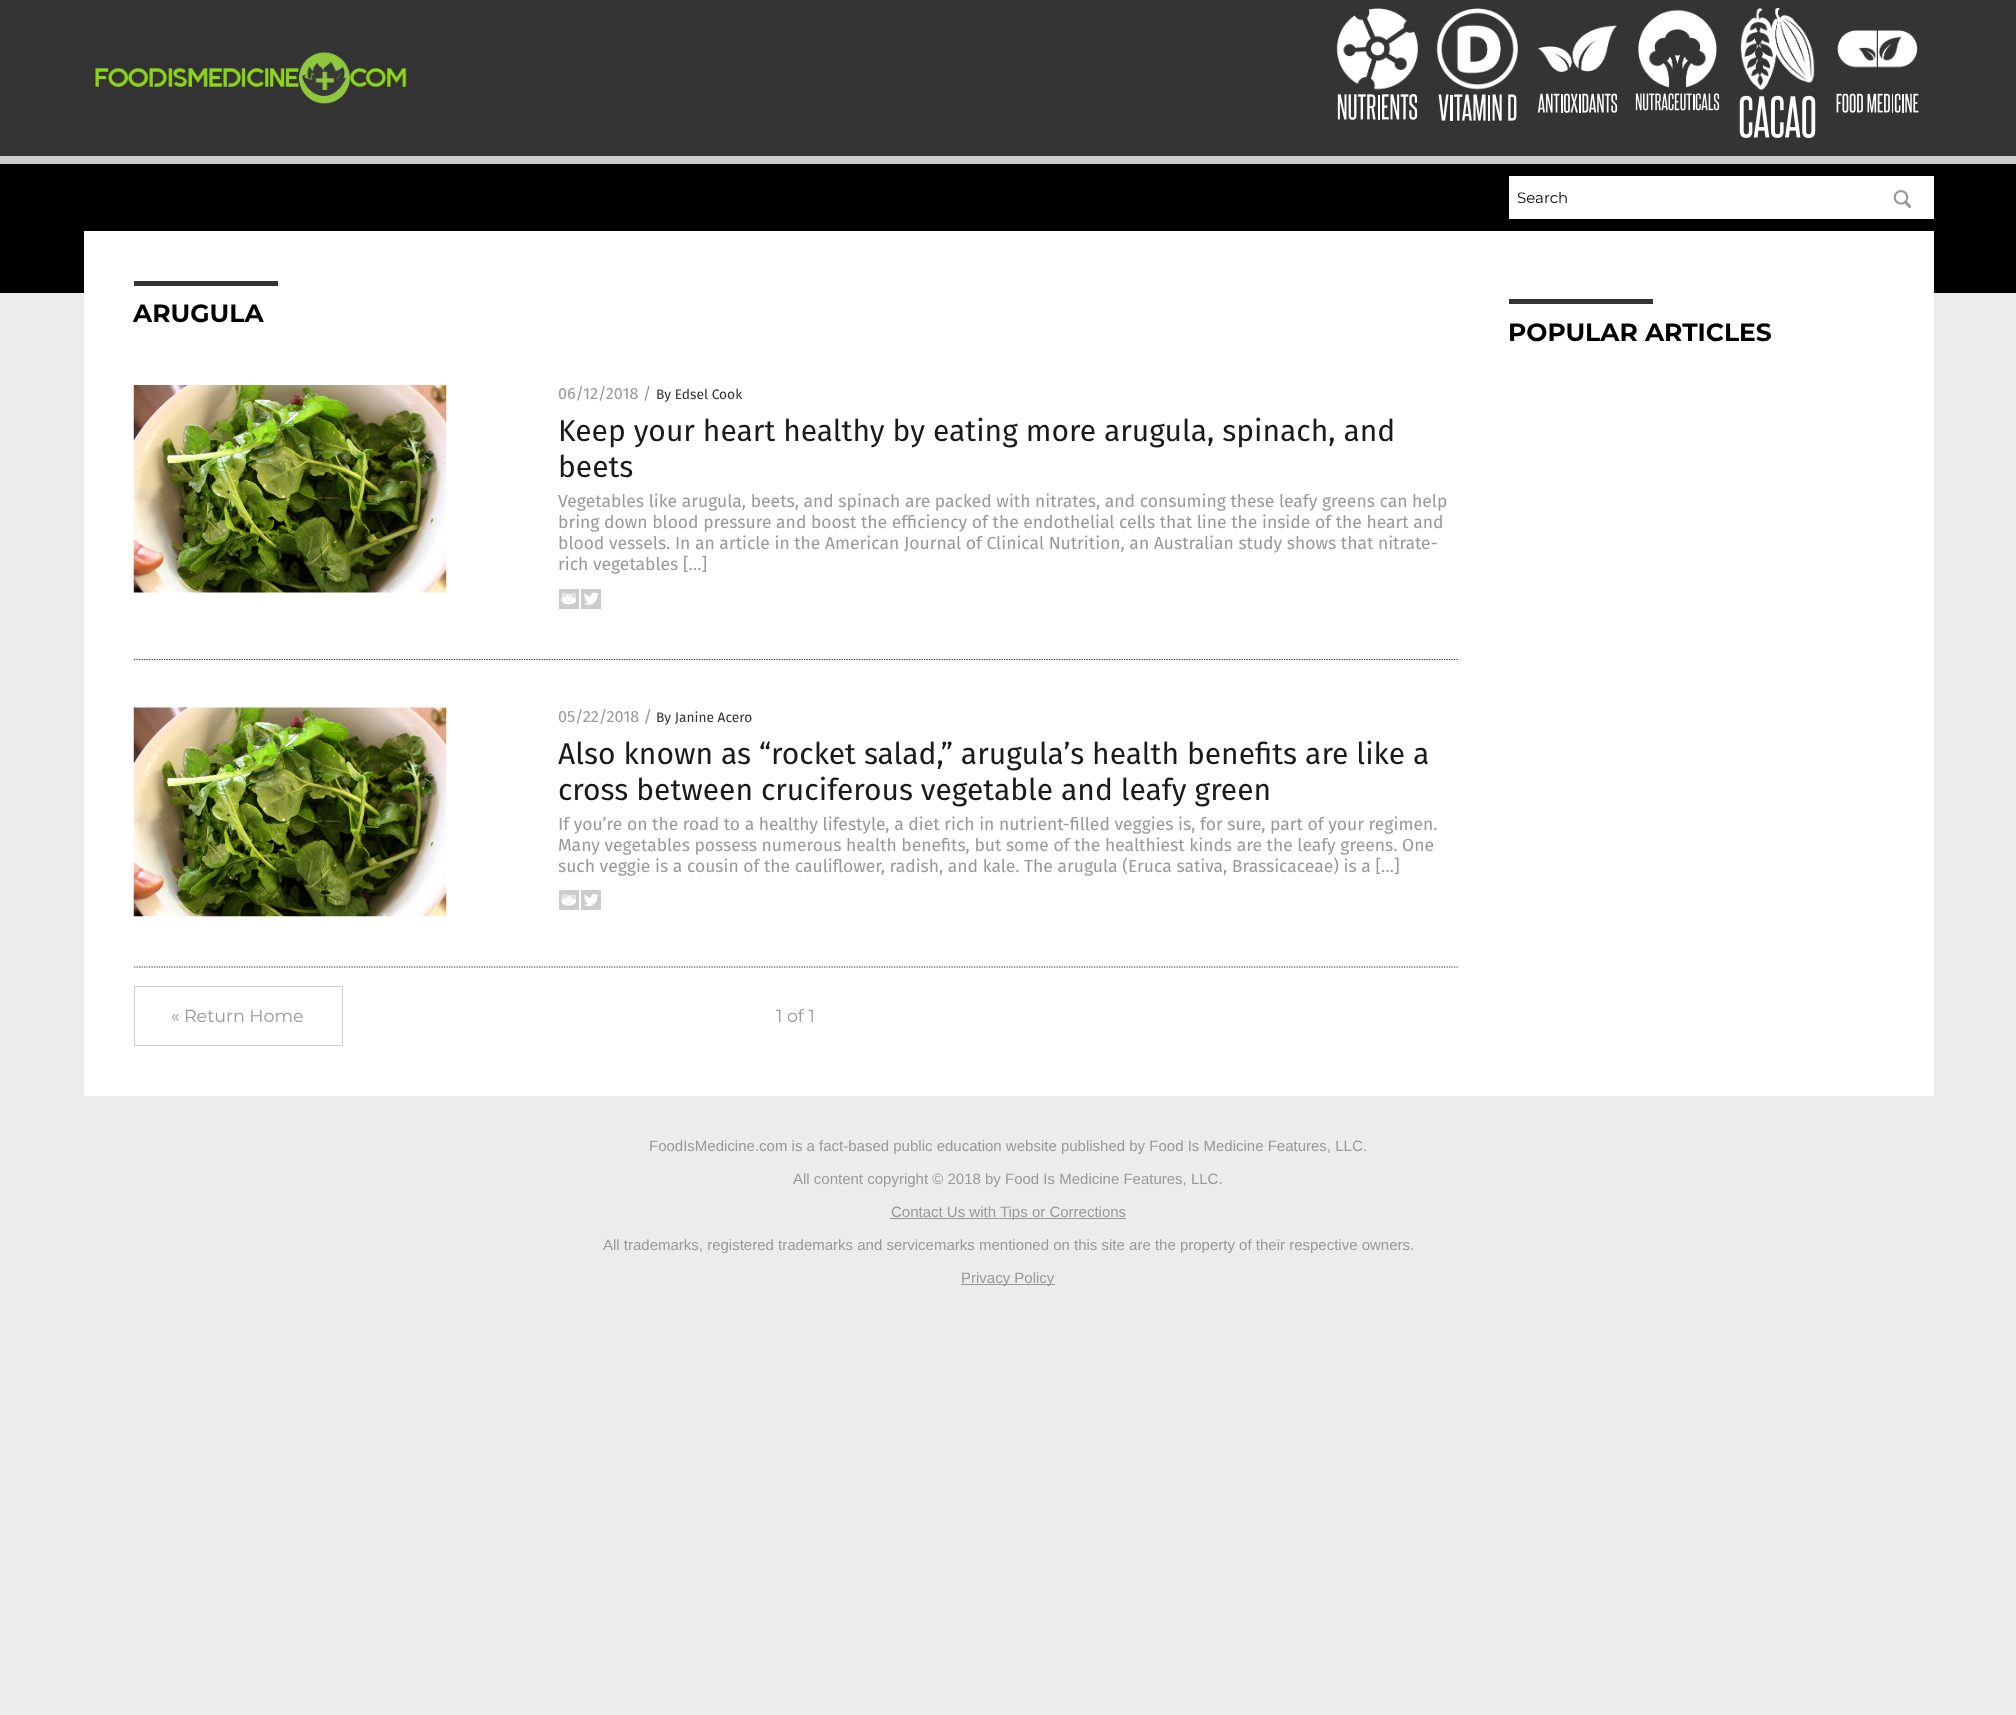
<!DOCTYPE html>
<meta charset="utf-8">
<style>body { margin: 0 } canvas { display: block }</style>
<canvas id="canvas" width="2016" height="1715"></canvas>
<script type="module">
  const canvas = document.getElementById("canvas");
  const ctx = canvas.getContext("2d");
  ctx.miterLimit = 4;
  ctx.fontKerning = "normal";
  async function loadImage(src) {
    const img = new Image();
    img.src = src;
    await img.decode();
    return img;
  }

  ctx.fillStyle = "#ececec";
  ctx.fillRect(0, 0, 2016, 1715);
  ctx.fillStyle = "#000000";
  ctx.fillRect(0, 164, 2016, 129);
  ctx.fillStyle = "#343434";
  ctx.fillRect(0, 0, 2016, 156);
  ctx.drawImage(await loadImage("img1.png"), 95, 52, 312, 52);
  ctx.drawImage(await loadImage("img2.png"), 1336, 8, 82, 82);
  ctx.drawImage(await loadImage("img3.png"), 1337, 94, 81, 26);
  ctx.drawImage(await loadImage("img4.png"), 1436, 8, 82, 82);
  ctx.drawImage(await loadImage("img5.png"), 1438, 94, 79, 27);
  ctx.drawImage(await loadImage("img6.png"), 1537, 25, 80, 47);
  ctx.drawImage(await loadImage("img7.png"), 1537, 93, 81, 20);
  ctx.drawImage(await loadImage("img8.png"), 1638, 9, 79, 79);
  ctx.drawImage(await loadImage("img9.png"), 1635, 93, 85, 18);
  ctx.drawImage(await loadImage("img10.png"), 1740, 8, 75, 82);
  ctx.drawImage(await loadImage("img11.png"), 1739, 95, 77, 44);
  ctx.drawImage(await loadImage("img12.png"), 1837, 30, 81, 38);
  ctx.drawImage(await loadImage("img13.png"), 1836, 93, 83, 20);
  ctx.fillStyle = "#cccccc";
  ctx.fillRect(0, 156, 2016, 8);
  ctx.fillStyle = "#ffffff";
  ctx.fillRect(1509, 176, 425, 43);
  ctx.font = "15px Montserrat";
  ctx.fillStyle = "#000000";
  ctx.fillText("Search", 1517, 203);
  ctx.drawImage(await loadImage("img14.png"), 1893, 190, 19, 18);
  ctx.fillStyle = "#ffffff";
  ctx.fillRect(84, 231, 1850, 865);
  ctx.fillStyle = "#343434";
  ctx.fillRect(134, 281, 144, 5);
  ctx.font = "bold 25px Montserrat";
  ctx.fillStyle = "#000000";
  ctx.fillText("ARUGULA", 133, 322);
  ctx.beginPath();
  ctx.moveTo(134, 659.5);
  ctx.lineTo(1459, 659.5);
  ctx.strokeStyle = "#343434";
  ctx.lineWidth = 1.2;
  ctx.setLineDash([1.25, 1.25]);
  ctx.stroke();
  ctx.drawImage(await loadImage("img15.png"), 133, 385, 314, 208);
  ctx.font = "16.25px Fira Sans";
  ctx.fillStyle = "#999999";
  ctx.fillText("06/12/2018 /", 558, 399);
  ctx.font = "13.75px Fira Sans";
  ctx.fillStyle = "#333333";
  ctx.fillText("By Edsel Cook", 656, 399);
  ctx.font = "30px Fira Sans";
  ctx.fillStyle = "#1a1a1a";
  ctx.fillText("Keep your heart healthy by eating more arugula, spinach, and", 558, 441);
  ctx.fillText("beets", 558, 477);
  ctx.font = "17.5px Fira Sans";
  ctx.fillStyle = "#999999";
  ctx.fillText("Vegetables like arugula, beets, and spinach are packed with nitrates, and consuming these leafy greens can help", 558, 507);
  ctx.fillText("bring down blood pressure and boost the efficiency of the endothelial cells that line the inside of the heart and", 558, 528);
  ctx.fillText("blood vessels. In an article in the American Journal of Clinical Nutrition, an Australian study shows that nitrate-", 558, 549);
  ctx.fillText("rich vegetables […]", 558, 570);
  ctx.drawImage(await loadImage("img16.png"), 559, 589, 20, 20);
  ctx.drawImage(await loadImage("img17.png"), 581, 589, 20, 20);
  ctx.beginPath();
  ctx.moveTo(134, 967);
  ctx.lineTo(1459, 967);
  ctx.stroke();
  ctx.drawImage(await loadImage("img18.png"), 133, 707, 314, 210);
  ctx.font = "16.25px Fira Sans";
  ctx.fillText("05/22/2018 /", 558, 722);
  ctx.font = "13.75px Fira Sans";
  ctx.fillStyle = "#333333";
  ctx.fillText("By Janine Acero", 656, 722);
  ctx.font = "30px Fira Sans";
  ctx.fillStyle = "#1a1a1a";
  ctx.fillText("Also known as “rocket salad,” arugula’s health benefits are like a", 558, 764);
  ctx.fillText("cross between cruciferous vegetable and leafy green", 558, 800);
  ctx.font = "17.5px Fira Sans";
  ctx.fillStyle = "#999999";
  ctx.fillText("If you’re on the road to a healthy lifestyle, a diet rich in nutrient-filled veggies is, for sure, part of your regimen.", 558, 830);
  ctx.fillText("Many vegetables possess numerous health benefits, but some of the healthiest kinds are the leafy greens. One", 558, 851);
  ctx.fillText("such veggie is a cousin of the cauliflower, radish, and kale. The arugula (Eruca sativa, Brassicaceae) is a […]", 558, 872);
  ctx.drawImage(await loadImage("img19.png"), 559, 890, 20, 20);
  ctx.drawImage(await loadImage("img20.png"), 581, 890, 20, 20);
  ctx.strokeStyle = "#cccccc";
  ctx.lineWidth = 1;
  ctx.setLineDash([]);
  ctx.strokeRect(134.5, 986.5, 208, 59);
  ctx.font = "17.5px Montserrat";
  ctx.fillText("« Return Home", 171, 1022);
  ctx.fillText("1 of 1", 776, 1022);
  ctx.fillStyle = "#343434";
  ctx.fillRect(1509, 299, 144, 5);
  ctx.font = "bold 25px Montserrat";
  ctx.fillStyle = "#000000";
  ctx.fillText("POPULAR ARTICLES", 1508, 341);
  ctx.font = "15px Liberation Sans";
  ctx.fillStyle = "#999999";
  ctx.fillText("FoodIsMedicine.com is a fact-based public education website published by Food Is Medicine Features, LLC.", 649, 1151);
  ctx.fillText("All content copyright © 2018 by Food Is Medicine Features, LLC.", 793, 1184);
  ctx.fillRect(890, 1218, 236, 1);
  ctx.fillText("Contact Us with Tips or Corrections", 891, 1217);
  ctx.fillText("All trademarks, registered trademarks and servicemarks mentioned on this site are the property of their respective owners.", 603, 1250);
  ctx.fillRect(961, 1284, 94, 1);
  ctx.fillText("Privacy Policy", 961, 1283);
</script>
